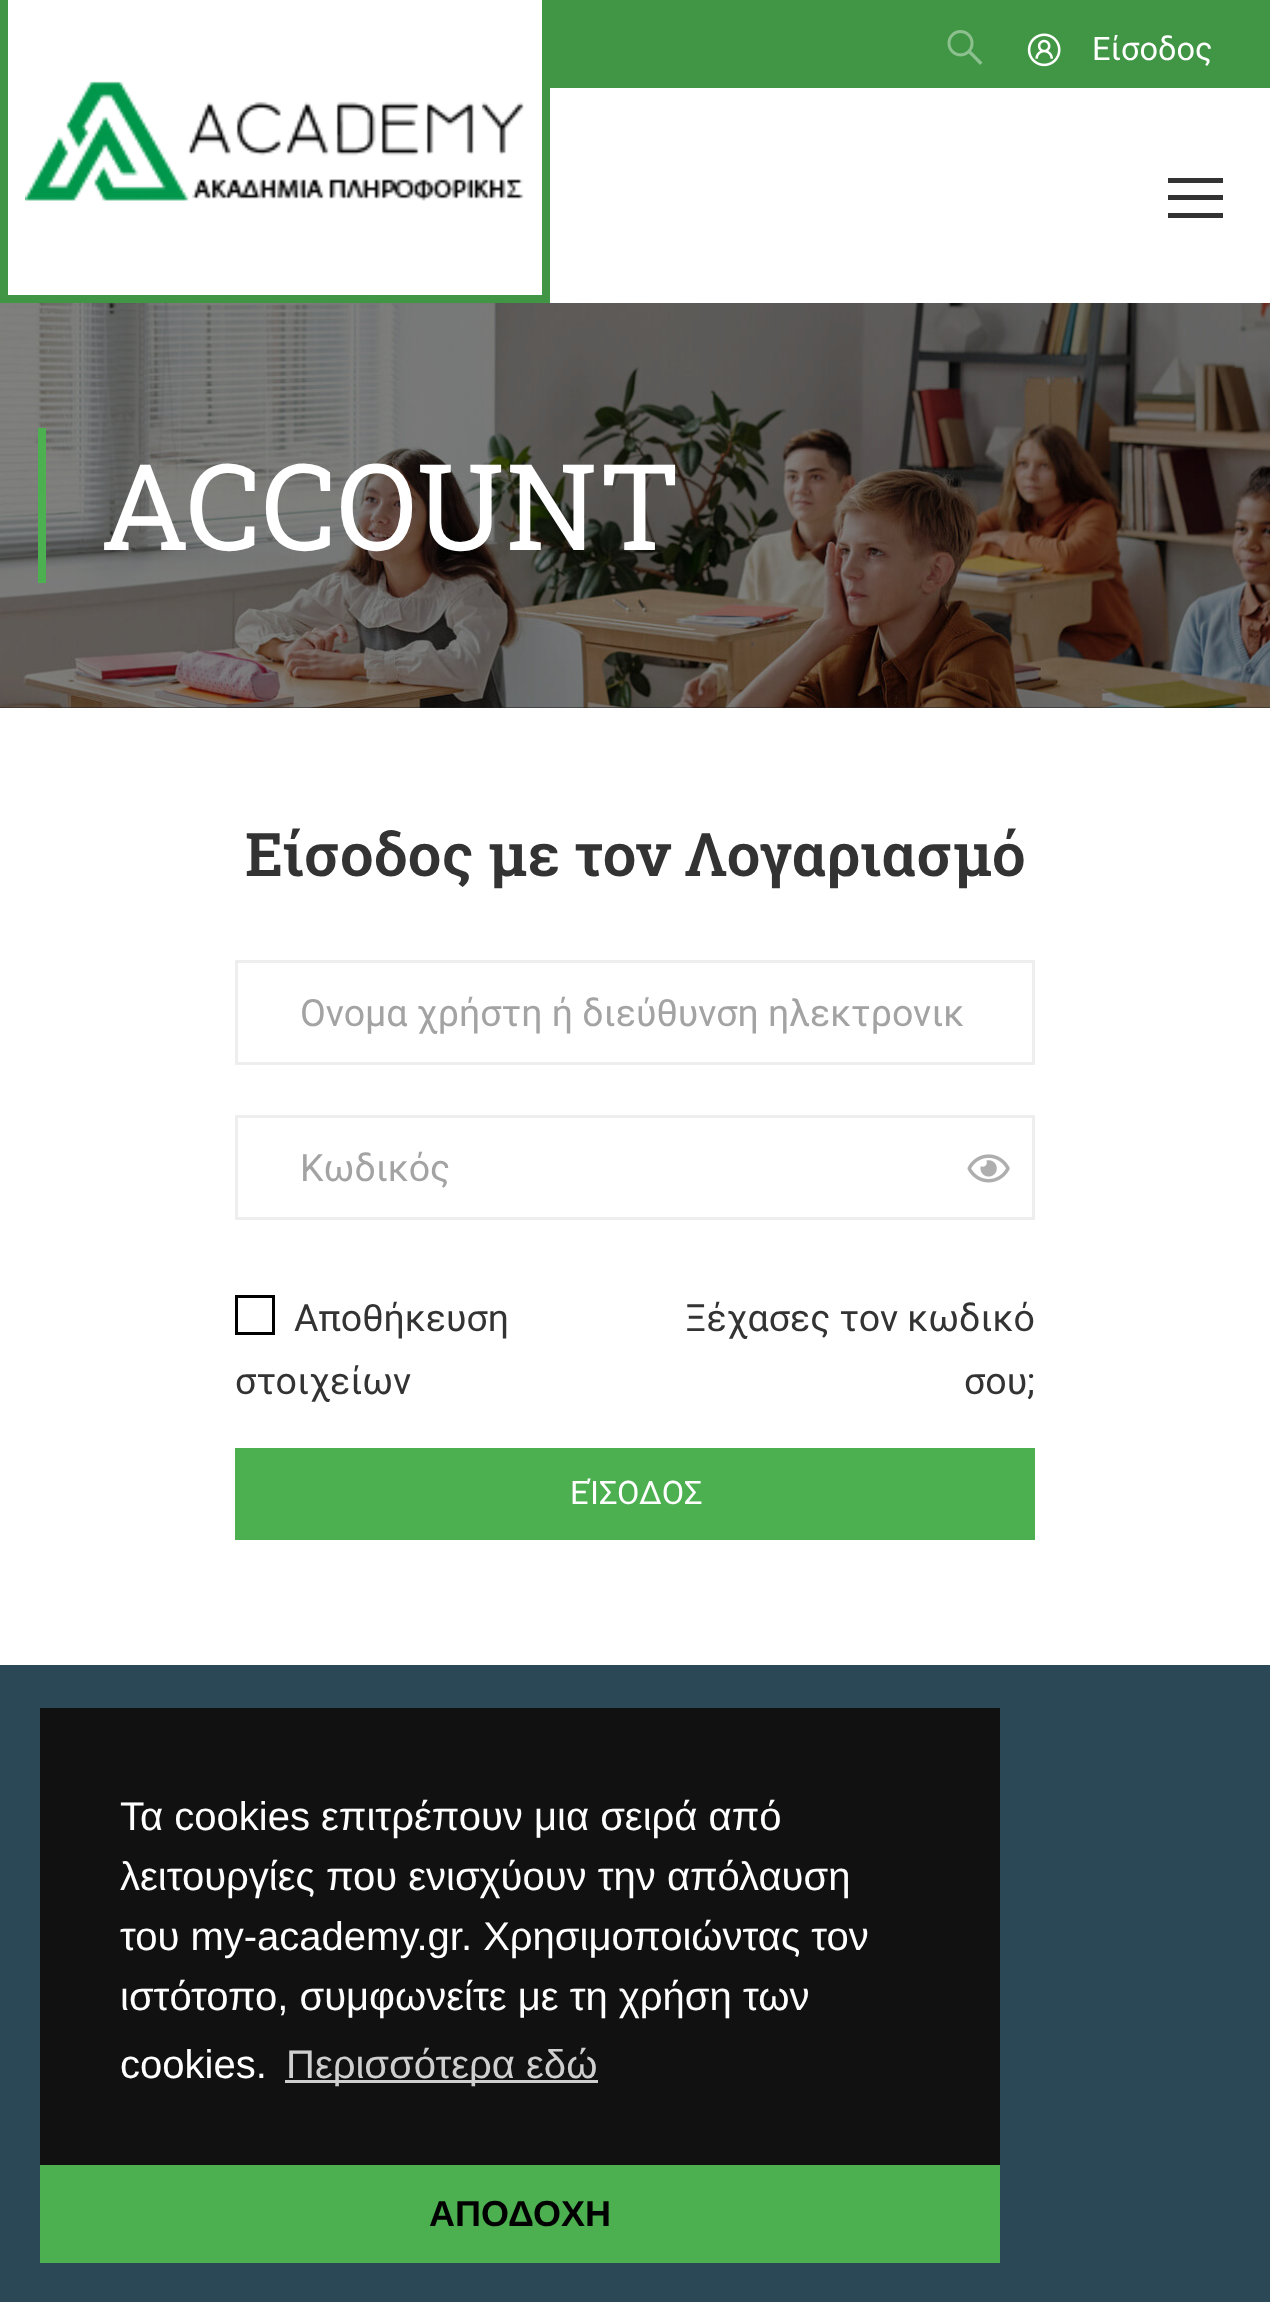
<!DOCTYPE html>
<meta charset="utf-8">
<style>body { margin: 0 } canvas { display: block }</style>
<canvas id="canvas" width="1270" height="2302"></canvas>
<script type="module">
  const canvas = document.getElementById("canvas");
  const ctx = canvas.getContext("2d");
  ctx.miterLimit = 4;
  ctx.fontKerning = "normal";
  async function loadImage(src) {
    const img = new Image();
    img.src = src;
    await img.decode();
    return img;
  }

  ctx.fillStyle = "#ffffff";
  ctx.fillRect(0, 0, 1270, 2302);
  ctx.strokeStyle = "#419645";
  ctx.lineWidth = 8;
  ctx.strokeRect(4, -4, 542, 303);
  ctx.drawImage(await loadImage("img1.png"), 25, 81, 499, 120);
  ctx.fillStyle = "#333333";
  ctx.fillRect(1168, 178, 55, 5);
  ctx.fillRect(1168, 195, 55, 5);
  ctx.fillRect(1168, 213, 55, 5);
  ctx.fillStyle = "#419645";
  ctx.fillRect(550, 0, 720, 88);
  ctx.drawImage(await loadImage("img2.png"), 947, 30, 36, 35);
  ctx.drawImage(await loadImage("img3.png"), 1027, 33, 34, 34);
  ctx.font = "32.5px Roboto";
  ctx.fillStyle = "#ffffff";
  ctx.fillText("Είσοδος", 1092, 60);
  ctx.fillStyle = "#1c1f22";
  ctx.fillRect(0, 707, 1270, 1);
  ctx.drawImage(await loadImage("img4.png"), 0, 303, 1270, 405);
  ctx.fillStyle = "#4caf50";
  ctx.fillRect(38, 428, 8, 155);
  ctx.font = "120px Roboto Slab";
  ctx.fillStyle = "#ffffff";
  ctx.fillText("ACCOUNT", 100, 550);
  ctx.font = "600 60px Roboto Slab";
  ctx.fillStyle = "#333333";
  ctx.fillText("Είσοδος με τον Λογαριασμό", 245, 876);
  ctx.strokeStyle = "#eeeeee";
  ctx.lineWidth = 3;
  ctx.strokeRect(236.5, 961.5, 797, 102);
  ctx.font = "37.5px Roboto";
  ctx.fillStyle = "#a3a3a3";
  ctx.fillText("Ονομα χρήστη ή διεύθυνση ηλεκτρονικ", 300, 1026);
  ctx.strokeRect(236.5, 1116.5, 797, 102);
  ctx.fillText("Κωδικός", 300, 1181);
  ctx.drawImage(await loadImage("img5.png"), 967, 1154, 43, 29);
  ctx.strokeStyle = "#000000";
  ctx.strokeRect(236.5, 1296.5, 37, 37);
  ctx.fillStyle = "#333333";
  ctx.fillText("Αποθήκευση", 294, 1331);
  ctx.fillText("στοιχείων", 235, 1394);
  ctx.fillText("Ξέχασες τον κωδικό", 685, 1331);
  ctx.fillText("σου;", 964, 1394);
  ctx.fillStyle = "#4caf50";
  ctx.fillRect(235, 1448, 800, 92);
  ctx.font = "32.5px Roboto";
  ctx.fillStyle = "#ffffff";
  ctx.fillText("ΕΊΣΟΔΟΣ", 570, 1504);
  ctx.fillStyle = "#2a4856";
  ctx.fillRect(0, 1665, 1270, 637);
  ctx.fillStyle = "#111111";
  ctx.fillRect(40, 1708, 960, 457);
  ctx.font = "40px Liberation Sans";
  ctx.fillStyle = "#ffffff";
  ctx.fillText("Τα cookies επιτρέπουν μια σειρά από", 120, 1830);
  ctx.fillText("λειτουργίες που ενισχύουν την απόλαυση", 120, 1890);
  ctx.fillText("του my-academy.gr. Χρησιμοποιώντας τον", 120, 1950);
  ctx.fillText("ιστότοπο, συμφωνείτε με τη χρήση των", 120, 2010);
  ctx.fillText("cookies.", 120, 2078);
  ctx.fillStyle = "#cfcfcf";
  ctx.fillRect(285, 2080, 313, 3);
  ctx.fillText("Περισσότερα εδώ", 286, 2078);
  ctx.fillStyle = "#4caf50";
  ctx.fillRect(40, 2165, 960, 98);
  ctx.font = "bold 36px Liberation Sans";
  ctx.fillStyle = "#000000";
  ctx.fillText("ΑΠΟΔΟΧΗ", 429, 2226);
</script>
